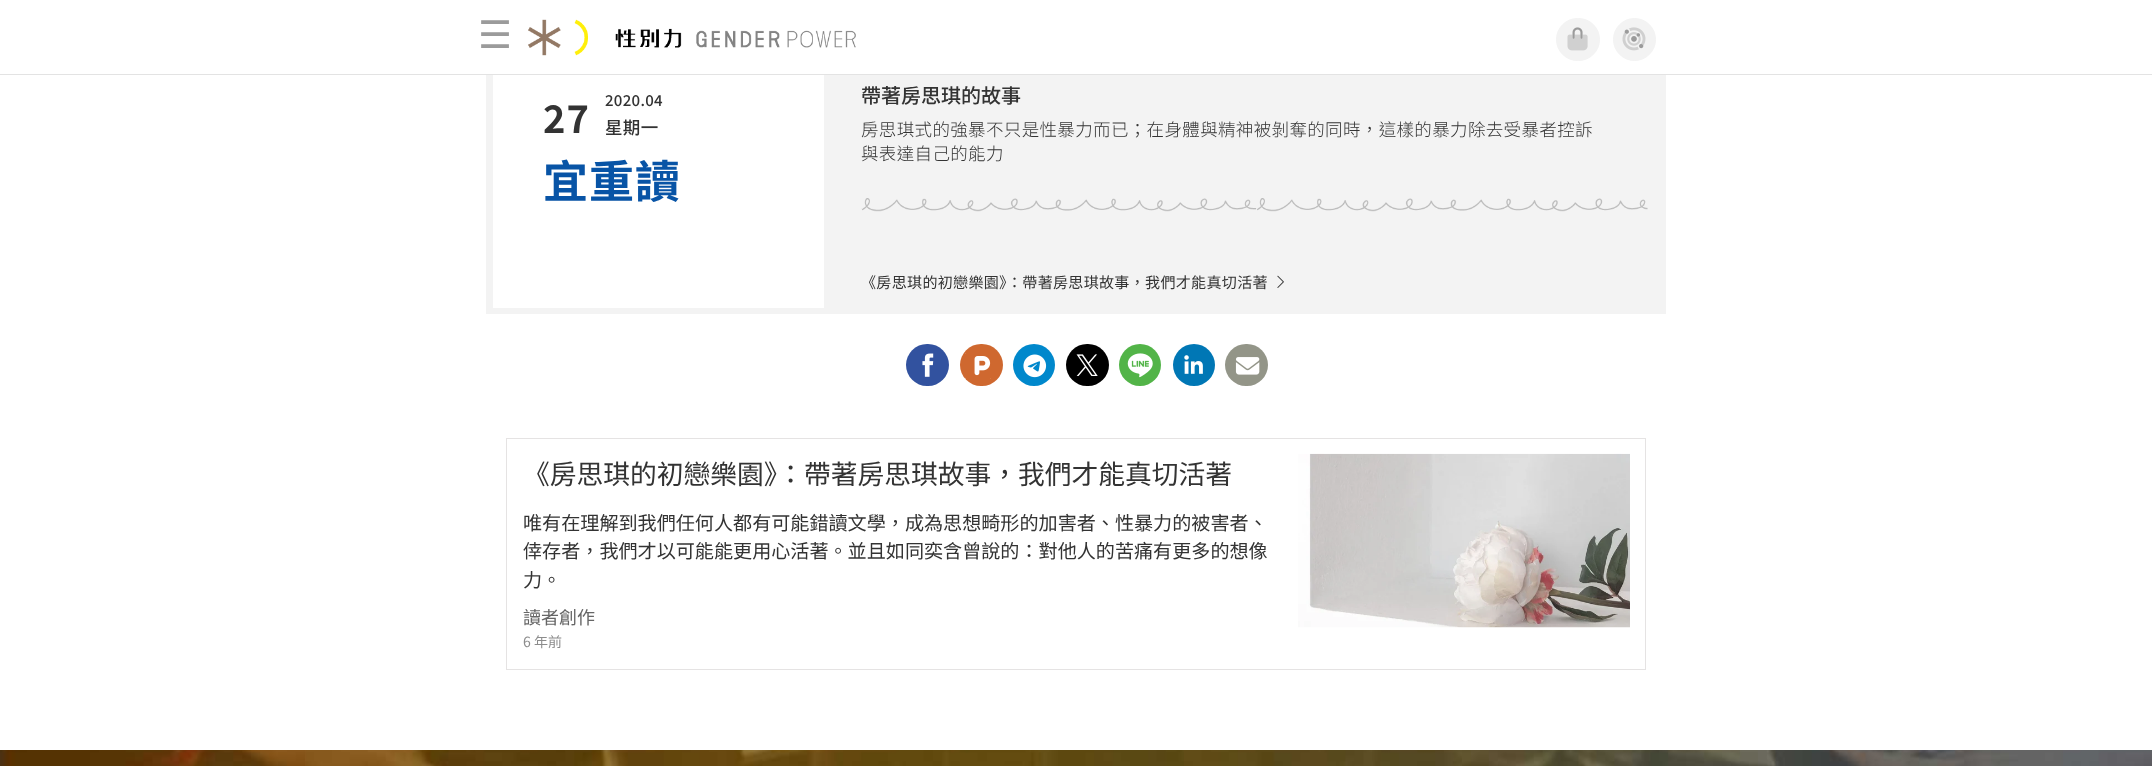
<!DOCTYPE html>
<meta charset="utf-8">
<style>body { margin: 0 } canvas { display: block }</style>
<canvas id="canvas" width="2152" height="766"></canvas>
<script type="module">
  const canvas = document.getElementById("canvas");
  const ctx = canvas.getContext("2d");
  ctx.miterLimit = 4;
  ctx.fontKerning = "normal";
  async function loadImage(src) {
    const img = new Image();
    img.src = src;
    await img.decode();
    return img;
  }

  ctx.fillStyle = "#ffffff";
  ctx.fillRect(0, 0, 2152, 766);
  ctx.fillStyle = "#e3e3e3";
  ctx.fillRect(0, 74, 2152, 1);
  ctx.font = "38px DejaVu Sans";
  ctx.fillStyle = "#9b9b9b";
  ctx.fillText("☰", 478, 48);
  ctx.drawImage(await loadImage("img1.png"), 528, 19, 328, 37);
  ctx.fillStyle = "#f3f3f3";
  ctx.beginPath();
  ctx.roundRect(1556.5, 18.5, 43, 42, 21);
  ctx.fill();
  ctx.strokeStyle = "#f3f3f3";
  ctx.stroke();
  ctx.drawImage(await loadImage("img2.png"), 1572, 27, 11, 12);
  ctx.drawImage(await loadImage("img3.png"), 1567, 34, 21, 17);
  ctx.beginPath();
  ctx.arc(1634.5, 39.5, 21, 0, Math.PI * 2);
  ctx.fill();
  ctx.stroke();
  ctx.drawImage(await loadImage("img5.png"), 1624, 29, 20, 20);
  ctx.drawImage(await loadImage("img4.png"), 1622, 27, 24, 24);
  ctx.fillRect(486, 75, 1180, 239);
  ctx.fillStyle = "#ffffff";
  ctx.fillRect(493, 75, 331, 233);
  ctx.letterSpacing = "0.3px";
  ctx.font = "500 15px Noto Sans TC";
  ctx.fillStyle = "#333333";
  ctx.fillText("2020.04", 605, 106);
  ctx.letterSpacing = "1px";
  ctx.font = "bold 38px Noto Sans TC";
  ctx.fillText("27", 543, 133);
  ctx.letterSpacing = "0.35px";
  ctx.font = "500 17.5px Noto Sans TC";
  ctx.fillText("星期一", 605, 134);
  ctx.letterSpacing = "1px";
  ctx.font = "bold 45px Noto Sans TC";
  ctx.fillStyle = "#0854a6";
  ctx.fillText("宜重讀", 543, 198);
  ctx.letterSpacing = "0px";
  ctx.font = "500 20px Noto Sans TC";
  ctx.fillStyle = "#333333";
  ctx.fillText("帶著房思琪的故事", 861, 103);
  ctx.letterSpacing = "0.35px";
  ctx.font = "300 17.5px Noto Sans TC";
  ctx.fillText("房思琪式的強暴不只是性暴力而已；在身體與精神被剝奪的同時，這樣的暴力除去受暴者控訴", 861, 136);
  ctx.fillText("與表達自己的能力", 861, 160);
  ctx.drawImage(await loadImage("img6.png"), 861, 198, 787, 14);
  ctx.letterSpacing = "0.3px";
  ctx.font = "15.05px Noto Sans TC";
  ctx.fillText("《房思琪的初戀樂園》：帶著房思琪故事，我們才能真切活著", 861, 288);
  ctx.drawImage(await loadImage("img7.png"), 1277, 275, 7, 13);
  ctx.fillStyle = "#32529f";
  ctx.beginPath();
  ctx.roundRect(906, 344, 43, 42, 21);
  ctx.fill();
  ctx.drawImage(await loadImage("img8.png"), 922, 353, 12, 24);
  ctx.fillStyle = "#cf682f";
  ctx.beginPath();
  ctx.roundRect(960, 344, 43, 42, 21);
  ctx.fill();
  ctx.fillStyle = "#ffffff";
  ctx.beginPath();
  ctx.moveTo(965, 353.5);
  ctx.lineTo(965.5, 353);
  ctx.lineTo(991, 353);
  ctx.lineTo(991, 378.5);
  ctx.lineTo(990.5, 379);
  ctx.lineTo(966, 379);
  ctx.lineTo(965, 378);
  ctx.closePath();
  ctx.fill();
  ctx.drawImage(await loadImage("img9.png"), 965, 353, 26, 27);
  ctx.fillStyle = "#0088cc";
  ctx.beginPath();
  ctx.arc(1034, 365, 21, 0, Math.PI * 2);
  ctx.fill();
  ctx.drawImage(await loadImage("img10.png"), 1023, 354, 24, 24);
  ctx.fillStyle = "#000000";
  ctx.beginPath();
  ctx.roundRect(1066, 344, 43, 42, 21);
  ctx.fill();
  ctx.drawImage(await loadImage("img11.png"), 1076, 354, 22, 22);
  ctx.fillStyle = "#52b448";
  ctx.beginPath();
  ctx.arc(1140, 365, 21, 0, Math.PI * 2);
  ctx.fill();
  ctx.drawImage(await loadImage("img12.png"), 1127, 353, 26, 25);
  ctx.fillStyle = "#0077b5";
  ctx.beginPath();
  ctx.arc(1194, 365, 21, 0, Math.PI * 2);
  ctx.fill();
  ctx.drawImage(await loadImage("img13.png"), 1184, 355, 19, 19);
  ctx.fillStyle = "#939588";
  ctx.beginPath();
  ctx.roundRect(1225, 344, 43, 42, 21);
  ctx.fill();
  ctx.drawImage(await loadImage("img14.png"), 1235, 357, 25, 18);
  ctx.strokeStyle = "#e5e3e3";
  ctx.strokeRect(506.5, 438.5, 1139, 231);
  ctx.letterSpacing = "0px";
  ctx.font = "26.75px Noto Sans TC";
  ctx.fillStyle = "#333333";
  ctx.fillText("《房思琪的初戀樂園》：帶著房思琪故事，我們才能真切活著", 523, 484);
  ctx.drawImage(await loadImage("img15.png"), 1298, 453, 332, 175);
  ctx.font = "19.1px Noto Sans TC";
  ctx.fillText("唯有在理解到我們任何人都有可能錯讀文學，成為思想畸形的加害者、性暴力的被害者、", 523, 530);
  ctx.fillText("倖存者，我們才以可能能更用心活著。並且如同奕含曾說的：對他人的苦痛有更多的想像", 523, 558);
  ctx.fillText("力。", 523, 587);
  ctx.font = "18px Noto Sans TC";
  ctx.fillStyle = "#666666";
  ctx.fillText("讀者創作", 523, 624);
  ctx.font = "14px Noto Sans TC";
  ctx.fillStyle = "#8c8c8c";
  ctx.fillText("6 年前", 523, 647);
  ctx.drawImage(await loadImage("img16.png"), 0, 750, 2152, 16);
</script>
